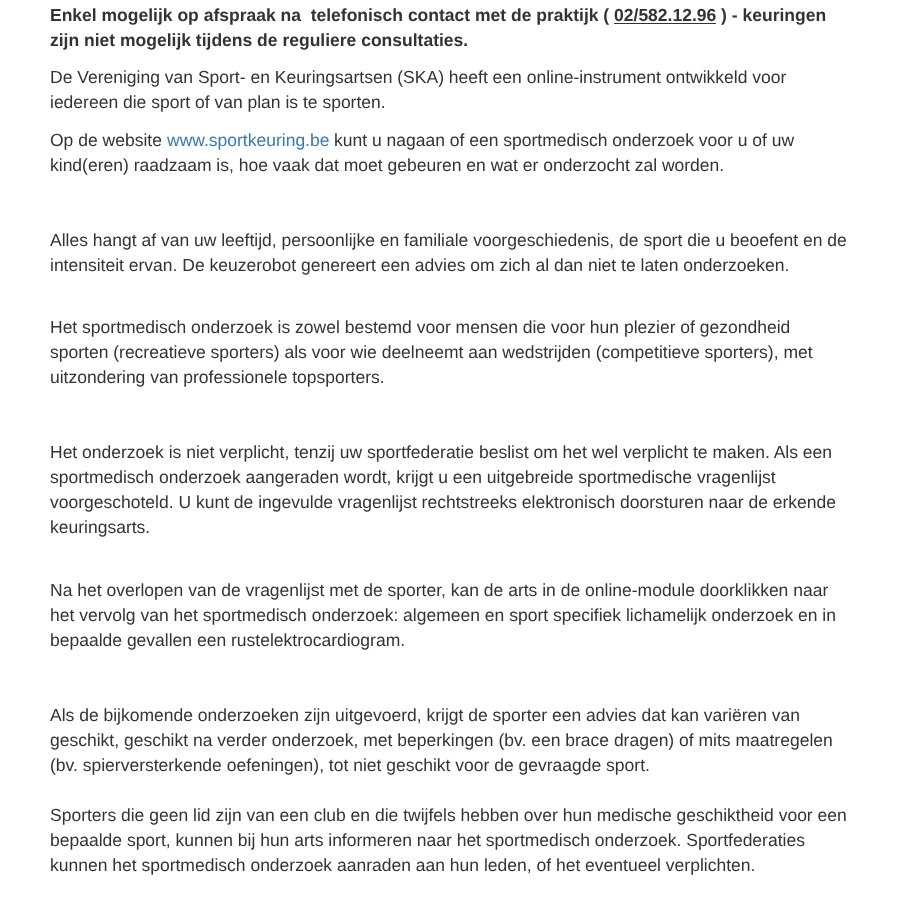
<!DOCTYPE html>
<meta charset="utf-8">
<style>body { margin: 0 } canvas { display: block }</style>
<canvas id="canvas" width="899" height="902"></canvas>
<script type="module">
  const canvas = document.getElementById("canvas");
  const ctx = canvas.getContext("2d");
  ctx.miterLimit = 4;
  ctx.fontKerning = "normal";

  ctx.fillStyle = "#ffffff";
  ctx.fillRect(0, 0, 899, 902);
  ctx.font = "bold 17.5px Liberation Sans";
  ctx.fillStyle = "#333333";
  ctx.fillText("Enkel mogelijk op afspraak na  telefonisch contact met de praktijk ( 02/582.12.96 ) - keuringen", 50, 21);
  ctx.fillRect(614, 23, 102, 1);
  ctx.fillText("zijn niet mogelijk tijdens de reguliere consultaties.", 50, 46);
  ctx.font = "17.5px Liberation Sans";
  ctx.fillText("De Vereniging van Sport- en Keuringsartsen (SKA) heeft een online-instrument ontwikkeld voor", 50, 83);
  ctx.fillText("iedereen die sport of van plan is te sporten.", 50, 108);
  ctx.fillText("Op de website", 50, 146);
  ctx.fillStyle = "#337ab7";
  ctx.fillText("www.sportkeuring.be", 167, 146);
  ctx.fillStyle = "#333333";
  ctx.fillText("kunt u nagaan of een sportmedisch onderzoek voor u of uw", 334, 146);
  ctx.fillText("kind(eren) raadzaam is, hoe vaak dat moet gebeuren en wat er onderzocht zal worden.", 50, 171);
  ctx.fillText("Alles hangt af van uw leeftijd, persoonlijke en familiale voorgeschiedenis, de sport die u beoefent en de", 50, 246);
  ctx.fillText("intensiteit ervan. De keuzerobot genereert een advies om zich al dan niet te laten onderzoeken.", 50, 271);
  ctx.fillText("Het sportmedisch onderzoek is zowel bestemd voor mensen die voor hun plezier of gezondheid", 50, 333);
  ctx.fillText("sporten (recreatieve sporters) als voor wie deelneemt aan wedstrijden (competitieve sporters), met", 50, 358);
  ctx.fillText("uitzondering van professionele topsporters.", 50, 383);
  ctx.fillText("Het onderzoek is niet verplicht, tenzij uw sportfederatie beslist om het wel verplicht te maken. Als een", 50, 458);
  ctx.fillText("sportmedisch onderzoek aangeraden wordt, krijgt u een uitgebreide sportmedische vragenlijst", 50, 483);
  ctx.fillText("voorgeschoteld. U kunt de ingevulde vragenlijst rechtstreeks elektronisch doorsturen naar de erkende", 50, 508);
  ctx.fillText("keuringsarts.", 50, 533);
  ctx.fillText("Na het overlopen van de vragenlijst met de sporter, kan de arts in de online-module doorklikken naar", 50, 596);
  ctx.fillText("het vervolg van het sportmedisch onderzoek: algemeen en sport specifiek lichamelijk onderzoek en in", 50, 621);
  ctx.fillText("bepaalde gevallen een rustelektrocardiogram.", 50, 646);
  ctx.fillText("Als de bijkomende onderzoeken zijn uitgevoerd, krijgt de sporter een advies dat kan variëren van", 50, 721);
  ctx.fillText("geschikt, geschikt na verder onderzoek, met beperkingen (bv. een brace dragen) of mits maatregelen", 50, 746);
  ctx.fillText("(bv. spierversterkende oefeningen), tot niet geschikt voor de gevraagde sport.", 50, 771);
  ctx.fillText("Sporters die geen lid zijn van een club en die twijfels hebben over hun medische geschiktheid voor een", 50, 821);
  ctx.fillText("bepaalde sport, kunnen bij hun arts informeren naar het sportmedisch onderzoek. Sportfederaties", 50, 846);
  ctx.fillText("kunnen het sportmedisch onderzoek aanraden aan hun leden, of het eventueel verplichten.", 50, 871);
</script>
